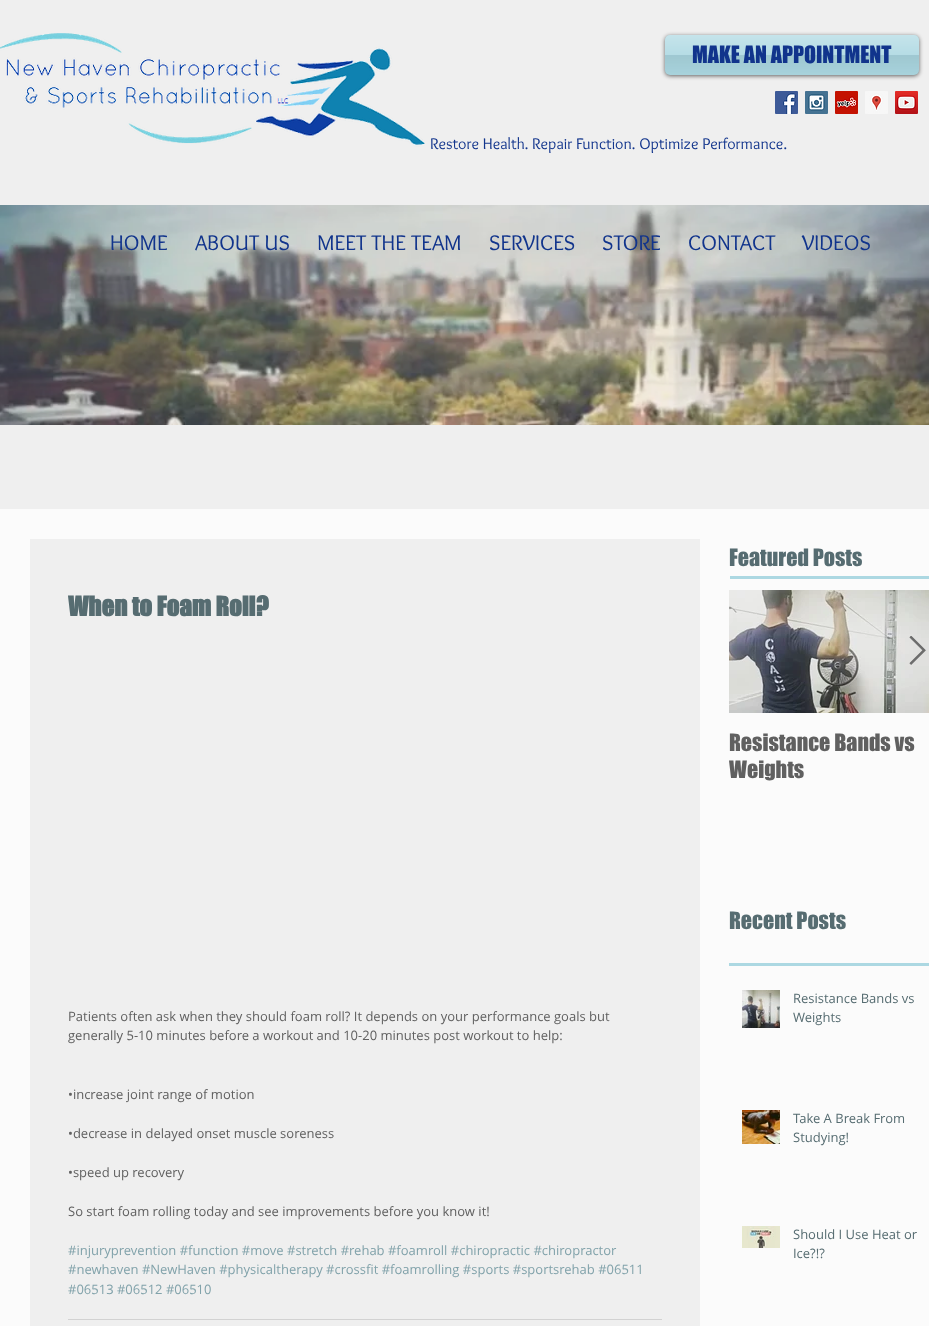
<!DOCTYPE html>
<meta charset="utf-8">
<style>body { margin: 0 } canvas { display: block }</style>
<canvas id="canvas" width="929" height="1326"></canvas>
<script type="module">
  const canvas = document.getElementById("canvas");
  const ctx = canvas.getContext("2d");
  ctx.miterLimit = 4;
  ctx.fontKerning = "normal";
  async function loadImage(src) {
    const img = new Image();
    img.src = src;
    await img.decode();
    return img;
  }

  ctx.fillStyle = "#efefef";
  ctx.fillRect(0, 0, 929, 1326);
  ctx.drawImage(await loadImage("img1.png"), 0, 33, 425, 114);
  ctx.fillStyle = "rgba(0, 0, 0, 0.6)";
  ctx.filter = "blur(2px)";
  ctx.beginPath();
  ctx.roundRect(665, 36, 254, 40, 5);
  ctx.fill();
  ctx.filter = "none";
  ctx.fillStyle = "#acd8e2";
  ctx.beginPath();
  ctx.roundRect(665, 35, 254, 40, 5);
  ctx.fill();
  ctx.drawImage(await loadImage("img2.png"), 665, 35, 254, 40);
  ctx.font = "22px 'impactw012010'";
  ctx.fillStyle = "#11348c";
  ctx.fillText("MAKE AN APPOINTMENT", 692, 63);
  ctx.drawImage(await loadImage("img3.png"), 775, 91, 23, 23);
  ctx.drawImage(await loadImage("img4.png"), 805, 91, 23, 23);
  ctx.drawImage(await loadImage("img5.png"), 835, 91, 23, 23);
  ctx.drawImage(await loadImage("img6.png"), 865, 91, 23, 23);
  ctx.drawImage(await loadImage("img7.png"), 895, 91, 23, 23);
  ctx.font = "16px Overlock";
  ctx.fillText("Restore Health. Repair Function. Optimize Performance.", 430, 149);
  ctx.drawImage(await loadImage("img8.png"), 0, 205, 929, 220);
  ctx.font = "22px Overlock";
  ctx.fillText("HOME", 110, 250);
  ctx.fillText("ABOUT US", 195, 250);
  ctx.fillText("MEET THE TEAM", 317, 250);
  ctx.fillText("SERVICES", 489, 250);
  ctx.fillText("STORE", 602, 250);
  ctx.fillText("CONTACT", 688, 250);
  ctx.fillText("VIDEOS", 802, 250);
  ctx.fillStyle = "#fbfbfb";
  ctx.fillRect(0, 509, 929, 817);
  ctx.font = "22px 'impactw012010'";
  ctx.fillStyle = "#566c71";
  ctx.fillText("Featured Posts", 729, 566);
  ctx.fillStyle = "#acd8e2";
  ctx.fillRect(730, 576, 199, 3);
  ctx.fillStyle = "#efefef";
  ctx.fillRect(30, 539, 670, 787);
  ctx.font = "bold 25px 'impactw012010'";
  ctx.fillStyle = "#566c71";
  ctx.fillText("When to Foam Roll?", 68, 616);
  ctx.font = "13px Open Sans";
  ctx.fillStyle = "#606060";
  ctx.fillText("Patients often ask when they should foam roll? It depends on your performance goals but", 68, 1021);
  ctx.fillText("generally 5-10 minutes before a workout and 10-20 minutes post workout to help:", 68, 1040);
  ctx.fillText("•increase joint range of motion", 68, 1099);
  ctx.fillText("•decrease in delayed onset muscle soreness", 68, 1138);
  ctx.fillText("•speed up recovery", 68, 1177);
  ctx.fillText("So start foam rolling today and see improvements before you know it!", 68, 1216);
  ctx.fillStyle = "#81a2aa";
  ctx.fillText("#injuryprevention #function #move #stretch #rehab #foamroll #chiropractic #chiropractor", 68, 1255);
  ctx.fillText("#newhaven #NewHaven #physicaltherapy #crossfit #foamrolling #sports #sportsrehab #06511", 68, 1274);
  ctx.fillText("#06513 #06512 #06510", 68, 1294);
  ctx.fillStyle = "#d2d2d2";
  ctx.fillRect(68, 1319, 594, 1);
  ctx.drawImage(await loadImage("img10.png"), 729, 590, 200, 123);
  ctx.drawImage(await loadImage("img9.png"), 909, 636, 17, 29);
  ctx.font = "22px 'impactw012010'";
  ctx.fillStyle = "#606060";
  ctx.fillText("Resistance Bands vs", 729, 751);
  ctx.fillText("Weights", 729, 778);
  ctx.fillStyle = "#566c71";
  ctx.fillText("Recent Posts", 729, 929);
  ctx.fillStyle = "#acd8e2";
  ctx.fillRect(729, 963, 200, 3);
  ctx.drawImage(await loadImage("img11.png"), 742, 990, 38, 38);
  ctx.font = "13px Open Sans";
  ctx.fillStyle = "#566c71";
  ctx.fillText("Resistance Bands vs", 793, 1003);
  ctx.fillText("Weights", 793, 1022);
  ctx.drawImage(await loadImage("img12.png"), 742, 1110, 38, 34);
  ctx.fillText("Take A Break From", 793, 1123);
  ctx.fillText("Studying!", 793, 1142);
  ctx.drawImage(await loadImage("img13.png"), 742, 1226, 38, 22);
  ctx.drawImage(await loadImage("img14.png"), 748, 1226, 27, 22);
  ctx.fillText("Should I Use Heat or", 793, 1239);
  ctx.fillText("Ice?!?", 793, 1258);
</script>
